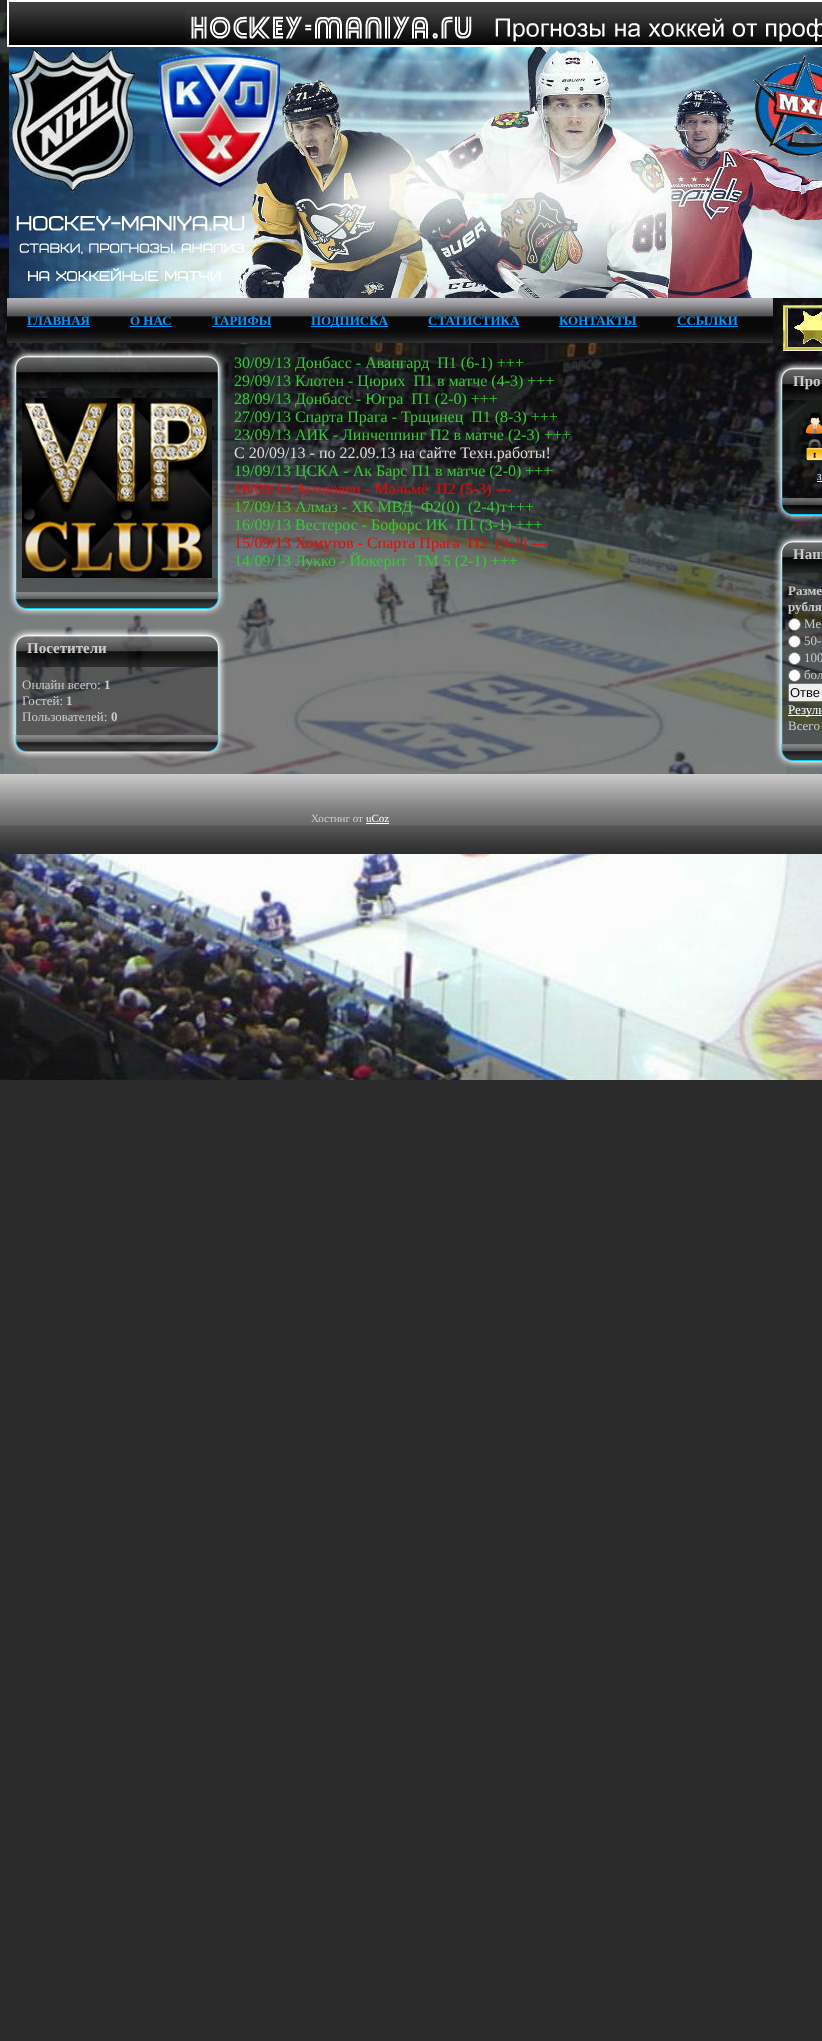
<!DOCTYPE html>
<meta charset="utf-8">
<style>body { margin: 0 } canvas { display: block }</style>
<canvas id="canvas" width="822" height="2041"></canvas>
<script type="module">
  const canvas = document.getElementById("canvas");
  const ctx = canvas.getContext("2d");
  ctx.miterLimit = 4;
  ctx.fontKerning = "normal";
  async function loadImage(src) {
    const img = new Image();
    img.src = src;
    await img.decode();
    return img;
  }

  ctx.fillStyle = "#2a2a2a";
  ctx.fillRect(0, 0, 822, 2041);
  ctx.drawImage(await loadImage("img1.png"), 0, 854, 822, 226);
  ctx.drawImage(await loadImage("img2.png"), 0, 0, 822, 774);
  ctx.drawImage(await loadImage("img3.png"), 7, 0, 815, 47);
  ctx.drawImage(await loadImage("img4.png"), 185, 10, 637, 32);
  ctx.drawImage(await loadImage("img5.png"), 9, 47, 813, 251);
  ctx.drawImage(await loadImage("img6.png"), 7, 298, 766, 45);
  ctx.font = "bold 13px Liberation Serif";
  ctx.fillStyle = "#0099ff";
  ctx.fillText("ГЛАВНАЯ", 27, 325);
  ctx.fillRect(27, 326, 63, 1);
  ctx.fillText("О НАС", 130, 325);
  ctx.fillRect(130, 326, 42, 1);
  ctx.fillText("ТАРИФЫ", 212, 325);
  ctx.fillRect(212, 326, 59, 1);
  ctx.fillRect(311, 326, 77, 1);
  ctx.fillText("ПОДПИСКА", 311, 325);
  ctx.fillText("СТАТИСТИКА", 428, 325);
  ctx.fillRect(428, 326, 91, 1);
  ctx.fillText("КОНТАКТЫ", 559, 325);
  ctx.fillRect(559, 326, 78, 1);
  ctx.fillText("CCЫЛКИ", 677, 325);
  ctx.fillRect(677, 326, 61, 1);
  ctx.drawImage(await loadImage("img7.png"), 783, 305, 39, 46);
  ctx.drawImage(await loadImage("img8.png"), 8, 349, 218, 39);
  ctx.drawImage(await loadImage("img9.png"), 8, 388, 218, 204);
  ctx.drawImage(await loadImage("img10.png"), 22, 398, 190, 180);
  ctx.drawImage(await loadImage("img11.png"), 8, 592, 218, 24);
  ctx.drawImage(await loadImage("img12.png"), 8, 628, 218, 39);
  ctx.font = "bold 15px Liberation Serif";
  ctx.fillStyle = "#cccccc";
  ctx.fillText("Посетители", 27, 653);
  ctx.drawImage(await loadImage("img13.png"), 8, 667, 218, 68);
  ctx.font = "13px Liberation Serif";
  ctx.fillText("Онлайн всего:", 22, 689);
  ctx.font = "bold 13px Liberation Serif";
  ctx.fillText("1", 104, 689);
  ctx.font = "13px Liberation Serif";
  ctx.fillText("Гостей:", 22, 705);
  ctx.font = "bold 13px Liberation Serif";
  ctx.fillText("1", 66, 705);
  ctx.font = "13px Liberation Serif";
  ctx.fillText("Пользователей:", 22, 721);
  ctx.font = "bold 13px Liberation Serif";
  ctx.fillText("0", 111, 721);
  ctx.drawImage(await loadImage("img14.png"), 8, 735, 218, 24);
  ctx.font = "16px Liberation Serif";
  ctx.fillStyle = "#32cd32";
  ctx.fillText("30/09/13 Донбасс - Авангард  П1 (6-1) +++", 234, 368);
  ctx.fillText("29/09/13 Клотен - Цюрих  П1 в матче (4-3) +++", 234, 386);
  ctx.fillText("28/09/13 Донбасс - Югра  П1 (2-0) +++", 234, 404);
  ctx.fillText("27/09/13 Спарта Прага - Трщинец  П1 (8-3) +++", 234, 422);
  ctx.fillText("23/09/13 АИК - Линчеппинг П2 в матче (2-3) +++", 234, 440);
  ctx.fillStyle = "#dcdcdc";
  ctx.fillText("C 20/09/13 - по 22.09.13 на сайте Техн.работы!", 234, 458);
  ctx.fillStyle = "#32cd32";
  ctx.fillText("19/09/13 ЦСКА - Ак Барс П1 в матче (2-0) +++", 234, 476);
  ctx.fillStyle = "#ff0000";
  ctx.fillText("18/09/13 Аспловен - Мальмё  П2 (5-3) ---", 234, 494);
  ctx.fillStyle = "#32cd32";
  ctx.fillText("17/09/13 Алмаз - ХК МВД  Ф2(0)  (2-4)т+++", 234, 512);
  ctx.fillText("16/09/13 Вестерос - Бофорс ИК  П1 (3-1) +++", 234, 530);
  ctx.fillStyle = "#ff0000";
  ctx.fillText("15/09/13 Хомутов - Спарта Прага  П2  (3-1) ---", 234, 548);
  ctx.fillStyle = "#32cd32";
  ctx.fillText("14/09/13 Лукко - Йокерит  ТМ 5 (2-1) +++", 234, 566);
  ctx.drawImage(await loadImage("img15.png"), 774, 361, 48, 39);
  ctx.font = "bold 15px Liberation Serif";
  ctx.fillStyle = "#cccccc";
  ctx.fillText("Про", 793, 386);
  ctx.drawImage(await loadImage("img16.png"), 774, 400, 48, 98);
  ctx.drawImage(await loadImage("img17.png"), 805, 412, 17, 22);
  ctx.drawImage(await loadImage("img18.png"), 806, 439, 16, 22);
  ctx.font = "9px Liberation Serif";
  ctx.fillStyle = "#ffffff";
  ctx.fillText("З", 817, 480);
  ctx.fillRect(817, 481, 5, 1);
  ctx.drawImage(await loadImage("img19.png"), 774, 498, 48, 24);
  ctx.drawImage(await loadImage("img20.png"), 774, 534, 48, 39);
  ctx.font = "bold 15px Liberation Serif";
  ctx.fillStyle = "#cccccc";
  ctx.fillText("Наш", 793, 559);
  ctx.drawImage(await loadImage("img21.png"), 774, 573, 48, 171);
  ctx.font = "bold 13px Liberation Serif";
  ctx.fillText("Разме", 788, 595);
  ctx.fillText("рубля", 788, 611);
  ctx.fillStyle = "#ffffff";
  ctx.beginPath();
  ctx.arc(794.5, 624.5, 6, 0, Math.PI * 2);
  ctx.fill();
  ctx.strokeStyle = "#767676";
  ctx.stroke();
  ctx.font = "13px Liberation Serif";
  ctx.fillStyle = "#cccccc";
  ctx.fillText("Ме", 804, 628);
  ctx.fillStyle = "#ffffff";
  ctx.beginPath();
  ctx.arc(794.5, 641.5, 6, 0, Math.PI * 2);
  ctx.fill();
  ctx.stroke();
  ctx.fillStyle = "#cccccc";
  ctx.fillText("50-", 804, 645);
  ctx.fillStyle = "#ffffff";
  ctx.beginPath();
  ctx.arc(794.5, 658.5, 6, 0, Math.PI * 2);
  ctx.fill();
  ctx.stroke();
  ctx.fillStyle = "#cccccc";
  ctx.fillText("100", 804, 662);
  ctx.fillStyle = "#ffffff";
  ctx.beginPath();
  ctx.arc(794.5, 675.5, 6, 0, Math.PI * 2);
  ctx.fill();
  ctx.stroke();
  ctx.fillStyle = "#cccccc";
  ctx.fillText("бол", 804, 679);
  ctx.fillStyle = "#efefef";
  ctx.beginPath();
  ctx.roundRect(788.5, 683.5, 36, 18, 1.5);
  ctx.fill();
  ctx.stroke();
  ctx.font = "13px Liberation Sans";
  ctx.fillStyle = "#000000";
  ctx.fillText("Отве", 790, 697);
  ctx.fillStyle = "#ffffff";
  ctx.fillRect(788, 715, 34, 1);
  ctx.font = "13px Liberation Serif";
  ctx.fillText("Резуль", 788, 714);
  ctx.fillStyle = "#cccccc";
  ctx.fillText("Всего", 788, 730);
  ctx.drawImage(await loadImage("img22.png"), 774, 744, 48, 24);
  ctx.drawImage(await loadImage("img23.png"), 0, 774, 822, 80);
  ctx.font = "11px Liberation Serif";
  ctx.fillText("Хостинг от", 311, 822);
  ctx.fillStyle = "#ffffff";
  ctx.fillText("uCoz", 366, 822);
  ctx.fillRect(366, 823, 23, 1);
</script>
